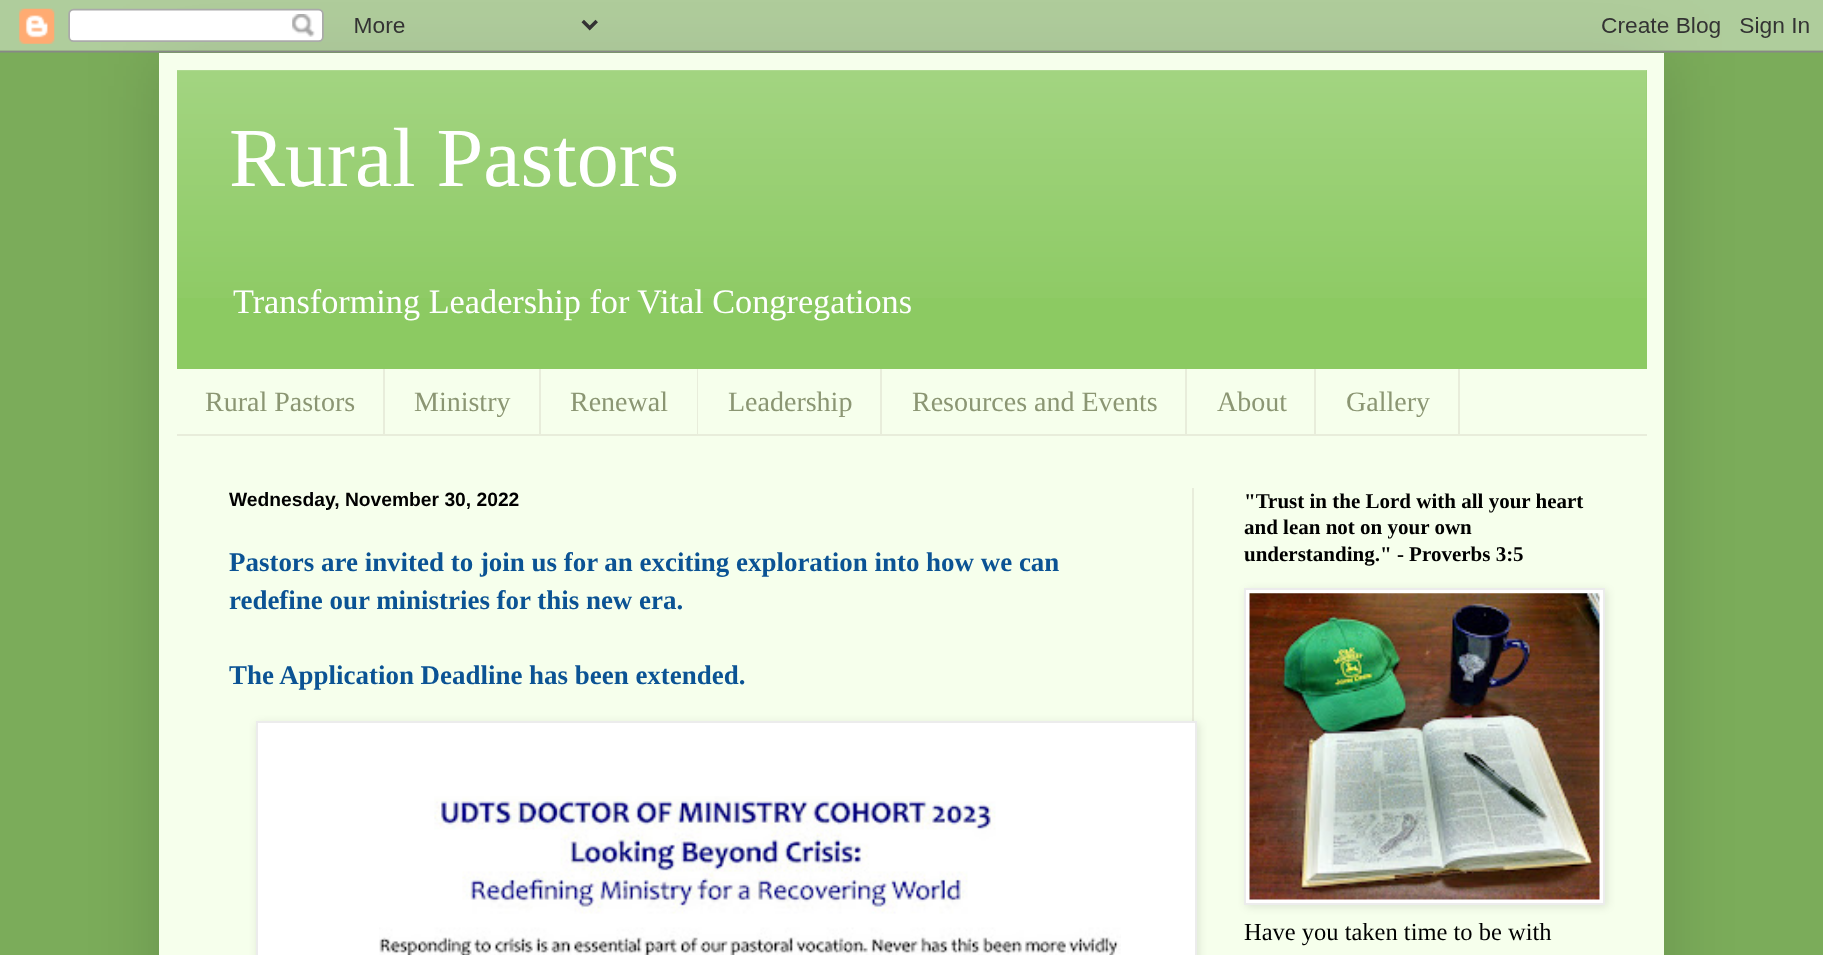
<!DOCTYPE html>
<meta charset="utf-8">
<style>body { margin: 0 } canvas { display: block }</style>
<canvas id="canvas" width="1823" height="955"></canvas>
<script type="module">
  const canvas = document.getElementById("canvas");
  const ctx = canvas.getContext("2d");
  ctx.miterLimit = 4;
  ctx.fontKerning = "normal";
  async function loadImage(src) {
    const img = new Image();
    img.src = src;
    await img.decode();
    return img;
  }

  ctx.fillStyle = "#7bac5a";
  ctx.fillRect(0, 0, 1823, 955);
  ctx.fillStyle = "rgba(0, 0, 0, 0.15)";
  ctx.filter = "blur(35px)";
  ctx.beginPath();
  ctx.rect(159, 53, 1505, 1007);
  ctx.fill();
  ctx.filter = "none";
  ctx.drawImage(await loadImage("img1.png"), 0, 0, 1823, 53);
  ctx.fillStyle = "#f6ffec";
  ctx.fillRect(159, 53, 1505, 902);
  ctx.fillStyle = "#8cca62";
  ctx.fillRect(177, 70, 1470, 299);
  ctx.drawImage(await loadImage("img2.png"), 177, 70, 1470, 228);
  ctx.font = "84px Liberation Serif";
  ctx.fillStyle = "#ffffff";
  ctx.fillText("Rural Pastors", 229, 186);
  ctx.font = "34.25px Liberation Serif";
  ctx.fillText("Transforming Leadership for Vital Congregations", 233, 313);
  ctx.fillStyle = "#e8eddb";
  ctx.fillRect(177, 434, 1470, 2);
  ctx.fillRect(383, 369, 2, 65);
  ctx.font = "28px Liberation Serif";
  ctx.fillStyle = "#8b9673";
  ctx.fillText("Rural Pastors", 205, 411);
  ctx.fillStyle = "#e8eddb";
  ctx.fillRect(539, 369, 2, 65);
  ctx.fillStyle = "#8b9673";
  ctx.fillText("Ministry", 414, 411);
  ctx.fillStyle = "#e8eddb";
  ctx.fillRect(697, 369, 1, 65);
  ctx.fillStyle = "#8b9673";
  ctx.fillText("Renewal", 570, 411);
  ctx.fillStyle = "#e8eddb";
  ctx.fillRect(880, 369, 2, 65);
  ctx.fillStyle = "#8b9673";
  ctx.fillText("Leadership", 728, 411);
  ctx.fillStyle = "#e8eddb";
  ctx.fillRect(1185, 369, 2, 65);
  ctx.fillStyle = "#8b9673";
  ctx.fillText("Resources and Events", 912, 411);
  ctx.fillStyle = "#e8eddb";
  ctx.fillRect(1314, 369, 2, 65);
  ctx.fillStyle = "#8b9673";
  ctx.fillText("About", 1217, 411);
  ctx.fillStyle = "#e8eddb";
  ctx.fillRect(1458, 369, 2, 65);
  ctx.fillStyle = "#8b9673";
  ctx.fillText("Gallery", 1346, 411);
  ctx.fillStyle = "#e8eddb";
  ctx.fillRect(1192, 488, 2, 233);
  ctx.font = "bold 19.25px Liberation Sans";
  ctx.fillStyle = "#000000";
  ctx.fillText("Wednesday, November 30, 2022", 229, 506);
  ctx.font = "bold 26.95px Liberation Serif";
  ctx.fillStyle = "#0b5394";
  ctx.fillText("Pastors are invited to join us for an exciting exploration into how we can", 229, 571);
  ctx.fillText("redefine our ministries for this new era.", 229, 609);
  ctx.fillText("The Application Deadline has been extended.", 229, 684);
  ctx.fillStyle = "rgba(0, 0, 0, 0.1)";
  ctx.filter = "blur(4.5px)";
  ctx.beginPath();
  ctx.rect(257, 723, 942, 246);
  ctx.fill();
  ctx.filter = "none";
  ctx.fillStyle = "#ffffff";
  ctx.beginPath();
  ctx.rect(257, 722, 939, 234);
  ctx.fill();
  ctx.strokeStyle = "#ececec";
  ctx.lineWidth = 2;
  ctx.stroke();
  ctx.drawImage(await loadImage("img3.png"), 379, 796, 742, 159);
  ctx.font = "bold 21px Liberation Serif";
  ctx.fillStyle = "#000000";
  ctx.fillText("\"Trust in the Lord with all your heart", 1244, 508);
  ctx.fillText("and lean not on your own", 1244, 534);
  ctx.fillText("understanding.\" - Proverbs 3:5", 1244, 561);
  ctx.fillStyle = "rgba(0, 0, 0, 0.1)";
  ctx.filter = "blur(4.5px)";
  ctx.beginPath();
  ctx.rect(1246, 590, 361, 317);
  ctx.fill();
  ctx.filter = "none";
  ctx.fillStyle = "#ffffff";
  ctx.beginPath();
  ctx.rect(1245, 589, 359, 315);
  ctx.fill();
  ctx.stroke();
  ctx.drawImage(await loadImage("img4.png"), 1249, 593, 351, 307);
  ctx.font = "24.5px Liberation Serif";
  ctx.fillStyle = "#000000";
  ctx.fillText("Have you taken time to be with", 1244, 940);
</script>
